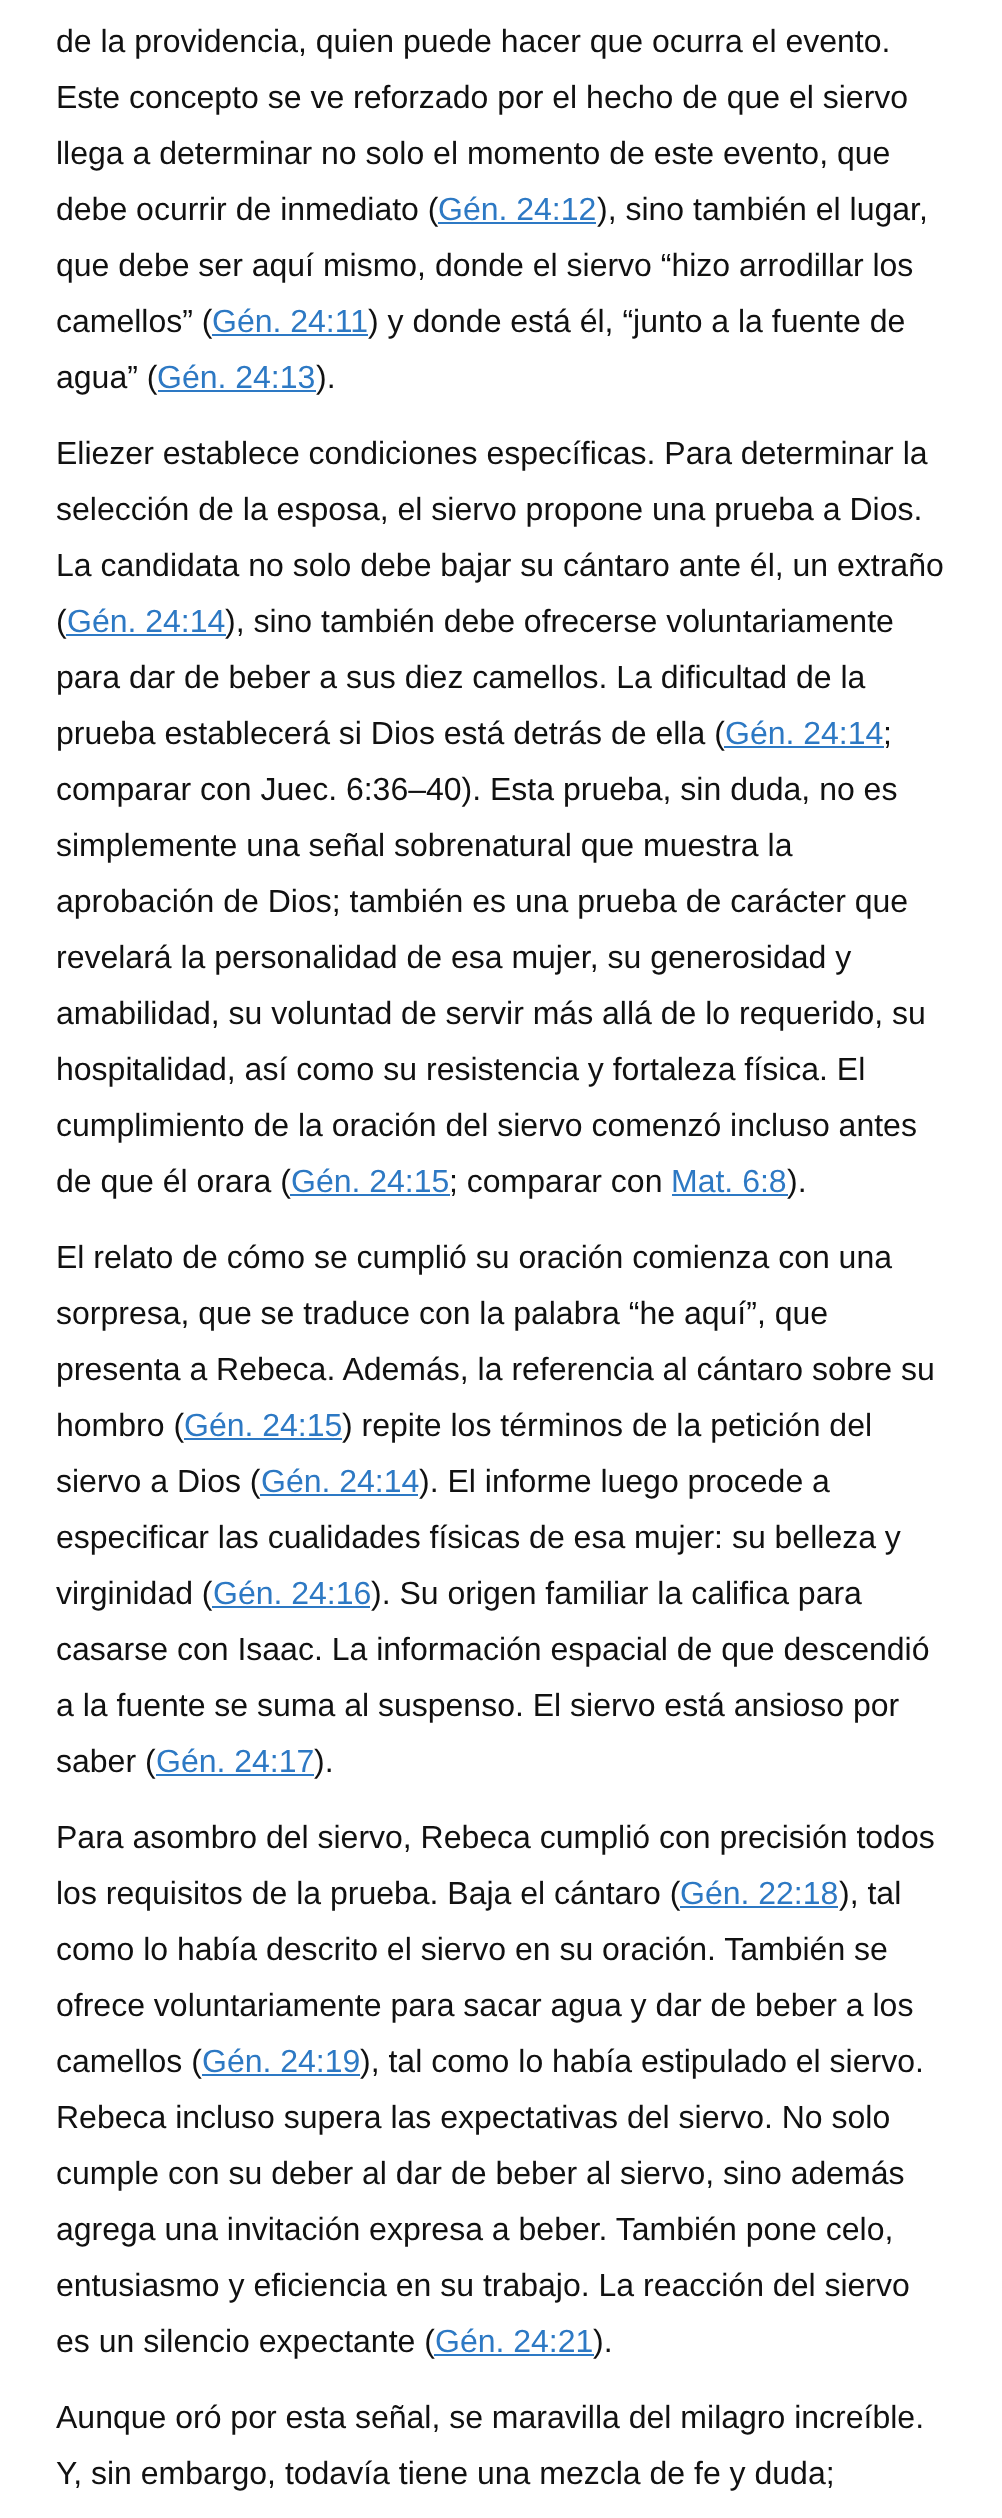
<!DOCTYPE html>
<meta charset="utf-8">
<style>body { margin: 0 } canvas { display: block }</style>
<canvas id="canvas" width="1002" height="2518"></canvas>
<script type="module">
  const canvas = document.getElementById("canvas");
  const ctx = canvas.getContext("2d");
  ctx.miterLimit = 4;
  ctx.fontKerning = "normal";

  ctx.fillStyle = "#ffffff";
  ctx.fillRect(0, 0, 1002, 2518);
  ctx.font = "32px Liberation Sans";
  ctx.fillStyle = "#111111";
  ctx.fillText("de la providencia, quien puede hacer que ocurra el evento.", 56, 52);
  ctx.fillText("Este concepto se ve reforzado por el hecho de que el siervo", 56, 108);
  ctx.fillText("llega a determinar no solo el momento de este evento, que", 56, 164);
  ctx.fillText("debe ocurrir de inmediato (", 56, 220);
  ctx.fillStyle = "#2d79c4";
  ctx.fillText("Gén. 24:12", 438, 220);
  ctx.fillRect(438, 222, 158, 2);
  ctx.fillStyle = "#111111";
  ctx.fillText("), sino también el lugar,", 597, 220);
  ctx.fillText("que debe ser aquí mismo, donde el siervo “hizo arrodillar los", 56, 276);
  ctx.fillText("camellos” (", 56, 332);
  ctx.fillStyle = "#2d79c4";
  ctx.fillText("Gén. 24:11", 212, 332);
  ctx.fillRect(212, 334, 156, 2);
  ctx.fillStyle = "#111111";
  ctx.fillText(") y donde está él, “junto a la fuente de", 368, 332);
  ctx.fillText("agua” (", 56, 388);
  ctx.fillStyle = "#2d79c4";
  ctx.fillText("Gén. 24:13", 157, 388);
  ctx.fillRect(158, 390, 158, 2);
  ctx.fillStyle = "#111111";
  ctx.fillText(").", 316, 388);
  ctx.fillText("Eliezer establece condiciones específicas. Para determinar la", 56, 464);
  ctx.fillText("selección de la esposa, el siervo propone una prueba a Dios.", 56, 520);
  ctx.fillText("La candidata no solo debe bajar su cántaro ante él, un extraño", 56, 576);
  ctx.fillText("(", 56, 632);
  ctx.fillStyle = "#2d79c4";
  ctx.fillText("Gén. 24:14", 67, 632);
  ctx.fillRect(66, 634, 160, 2);
  ctx.fillStyle = "#111111";
  ctx.fillText("), sino también debe ofrecerse voluntariamente", 225, 632);
  ctx.fillText("para dar de beber a sus diez camellos. La dificultad de la", 56, 688);
  ctx.fillText("prueba establecerá si Dios está detrás de ella (", 56, 744);
  ctx.fillStyle = "#2d79c4";
  ctx.fillText("Gén. 24:14", 725, 744);
  ctx.fillRect(724, 746, 160, 2);
  ctx.fillStyle = "#111111";
  ctx.fillText(";", 883, 744);
  ctx.fillText("comparar con Juec. 6:36–40). Esta prueba, sin duda, no es", 56, 800);
  ctx.fillText("simplemente una señal sobrenatural que muestra la", 56, 856);
  ctx.fillText("aprobación de Dios; también es una prueba de carácter que", 56, 912);
  ctx.fillText("revelará la personalidad de esa mujer, su generosidad y", 56, 968);
  ctx.fillText("amabilidad, su voluntad de servir más allá de lo requerido, su", 56, 1024);
  ctx.fillText("hospitalidad, así como su resistencia y fortaleza física. El", 56, 1080);
  ctx.fillText("cumplimiento de la oración del siervo comenzó incluso antes", 56, 1136);
  ctx.fillText("de que él orara (", 56, 1192);
  ctx.fillStyle = "#2d79c4";
  ctx.fillText("Gén. 24:15", 291, 1192);
  ctx.fillRect(290, 1194, 160, 2);
  ctx.fillStyle = "#111111";
  ctx.fillText("; comparar con", 449, 1192);
  ctx.fillStyle = "#2d79c4";
  ctx.fillText("Mat. 6:8", 671, 1192);
  ctx.fillRect(672, 1194, 116, 2);
  ctx.fillStyle = "#111111";
  ctx.fillText(").", 787, 1192);
  ctx.fillText("El relato de cómo se cumplió su oración comienza con una", 56, 1268);
  ctx.fillText("sorpresa, que se traduce con la palabra “he aquí”, que", 56, 1324);
  ctx.fillText("presenta a Rebeca. Además, la referencia al cántaro sobre su", 56, 1380);
  ctx.fillText("hombro (", 56, 1436);
  ctx.fillStyle = "#2d79c4";
  ctx.fillText("Gén. 24:15", 184, 1436);
  ctx.fillRect(184, 1438, 158, 2);
  ctx.fillStyle = "#111111";
  ctx.fillText(") repite los términos de la petición del", 342, 1436);
  ctx.fillText("siervo a Dios (", 56, 1492);
  ctx.fillStyle = "#2d79c4";
  ctx.fillText("Gén. 24:14", 261, 1492);
  ctx.fillRect(260, 1494, 158, 2);
  ctx.fillStyle = "#111111";
  ctx.fillText("). El informe luego procede a", 419, 1492);
  ctx.fillText("especificar las cualidades físicas de esa mujer: su belleza y", 56, 1548);
  ctx.fillText("virginidad (", 56, 1604);
  ctx.fillStyle = "#2d79c4";
  ctx.fillText("Gén. 24:16", 213, 1604);
  ctx.fillRect(212, 1606, 158, 2);
  ctx.fillStyle = "#111111";
  ctx.fillText("). Su origen familiar la califica para", 371, 1604);
  ctx.fillText("casarse con Isaac. La información espacial de que descendió", 56, 1660);
  ctx.fillText("a la fuente se suma al suspenso. El siervo está ansioso por", 56, 1716);
  ctx.fillText("saber (", 56, 1772);
  ctx.fillStyle = "#2d79c4";
  ctx.fillText("Gén. 24:17", 156, 1772);
  ctx.fillRect(156, 1774, 158, 2);
  ctx.fillStyle = "#111111";
  ctx.fillText(").", 314, 1772);
  ctx.fillText("Para asombro del siervo, Rebeca cumplió con precisión todos", 56, 1848);
  ctx.fillText("los requisitos de la prueba. Baja el cántaro (", 56, 1904);
  ctx.fillStyle = "#2d79c4";
  ctx.fillText("Gén. 22:18", 680, 1904);
  ctx.fillRect(680, 1906, 158, 2);
  ctx.fillStyle = "#111111";
  ctx.fillText("), tal", 839, 1904);
  ctx.fillText("como lo había descrito el siervo en su oración. También se", 56, 1960);
  ctx.fillText("ofrece voluntariamente para sacar agua y dar de beber a los", 56, 2016);
  ctx.fillText("camellos (", 56, 2072);
  ctx.fillStyle = "#2d79c4";
  ctx.fillText("Gén. 24:19", 202, 2072);
  ctx.fillRect(202, 2074, 158, 2);
  ctx.fillStyle = "#111111";
  ctx.fillText("), tal como lo había estipulado el siervo.", 360, 2072);
  ctx.fillText("Rebeca incluso supera las expectativas del siervo. No solo", 56, 2128);
  ctx.fillText("cumple con su deber al dar de beber al siervo, sino además", 56, 2184);
  ctx.fillText("agrega una invitación expresa a beber. También pone celo,", 56, 2240);
  ctx.fillText("entusiasmo y eficiencia en su trabajo. La reacción del siervo", 56, 2296);
  ctx.fillText("es un silencio expectante (", 56, 2352);
  ctx.fillStyle = "#2d79c4";
  ctx.fillText("Gén. 24:21", 435, 2352);
  ctx.fillRect(434, 2354, 160, 2);
  ctx.fillStyle = "#111111";
  ctx.fillText(").", 593, 2352);
  ctx.fillText("Aunque oró por esta señal, se maravilla del milagro increíble.", 56, 2428);
  ctx.fillText("Y, sin embargo, todavía tiene una mezcla de fe y duda;", 56, 2484);
</script>
